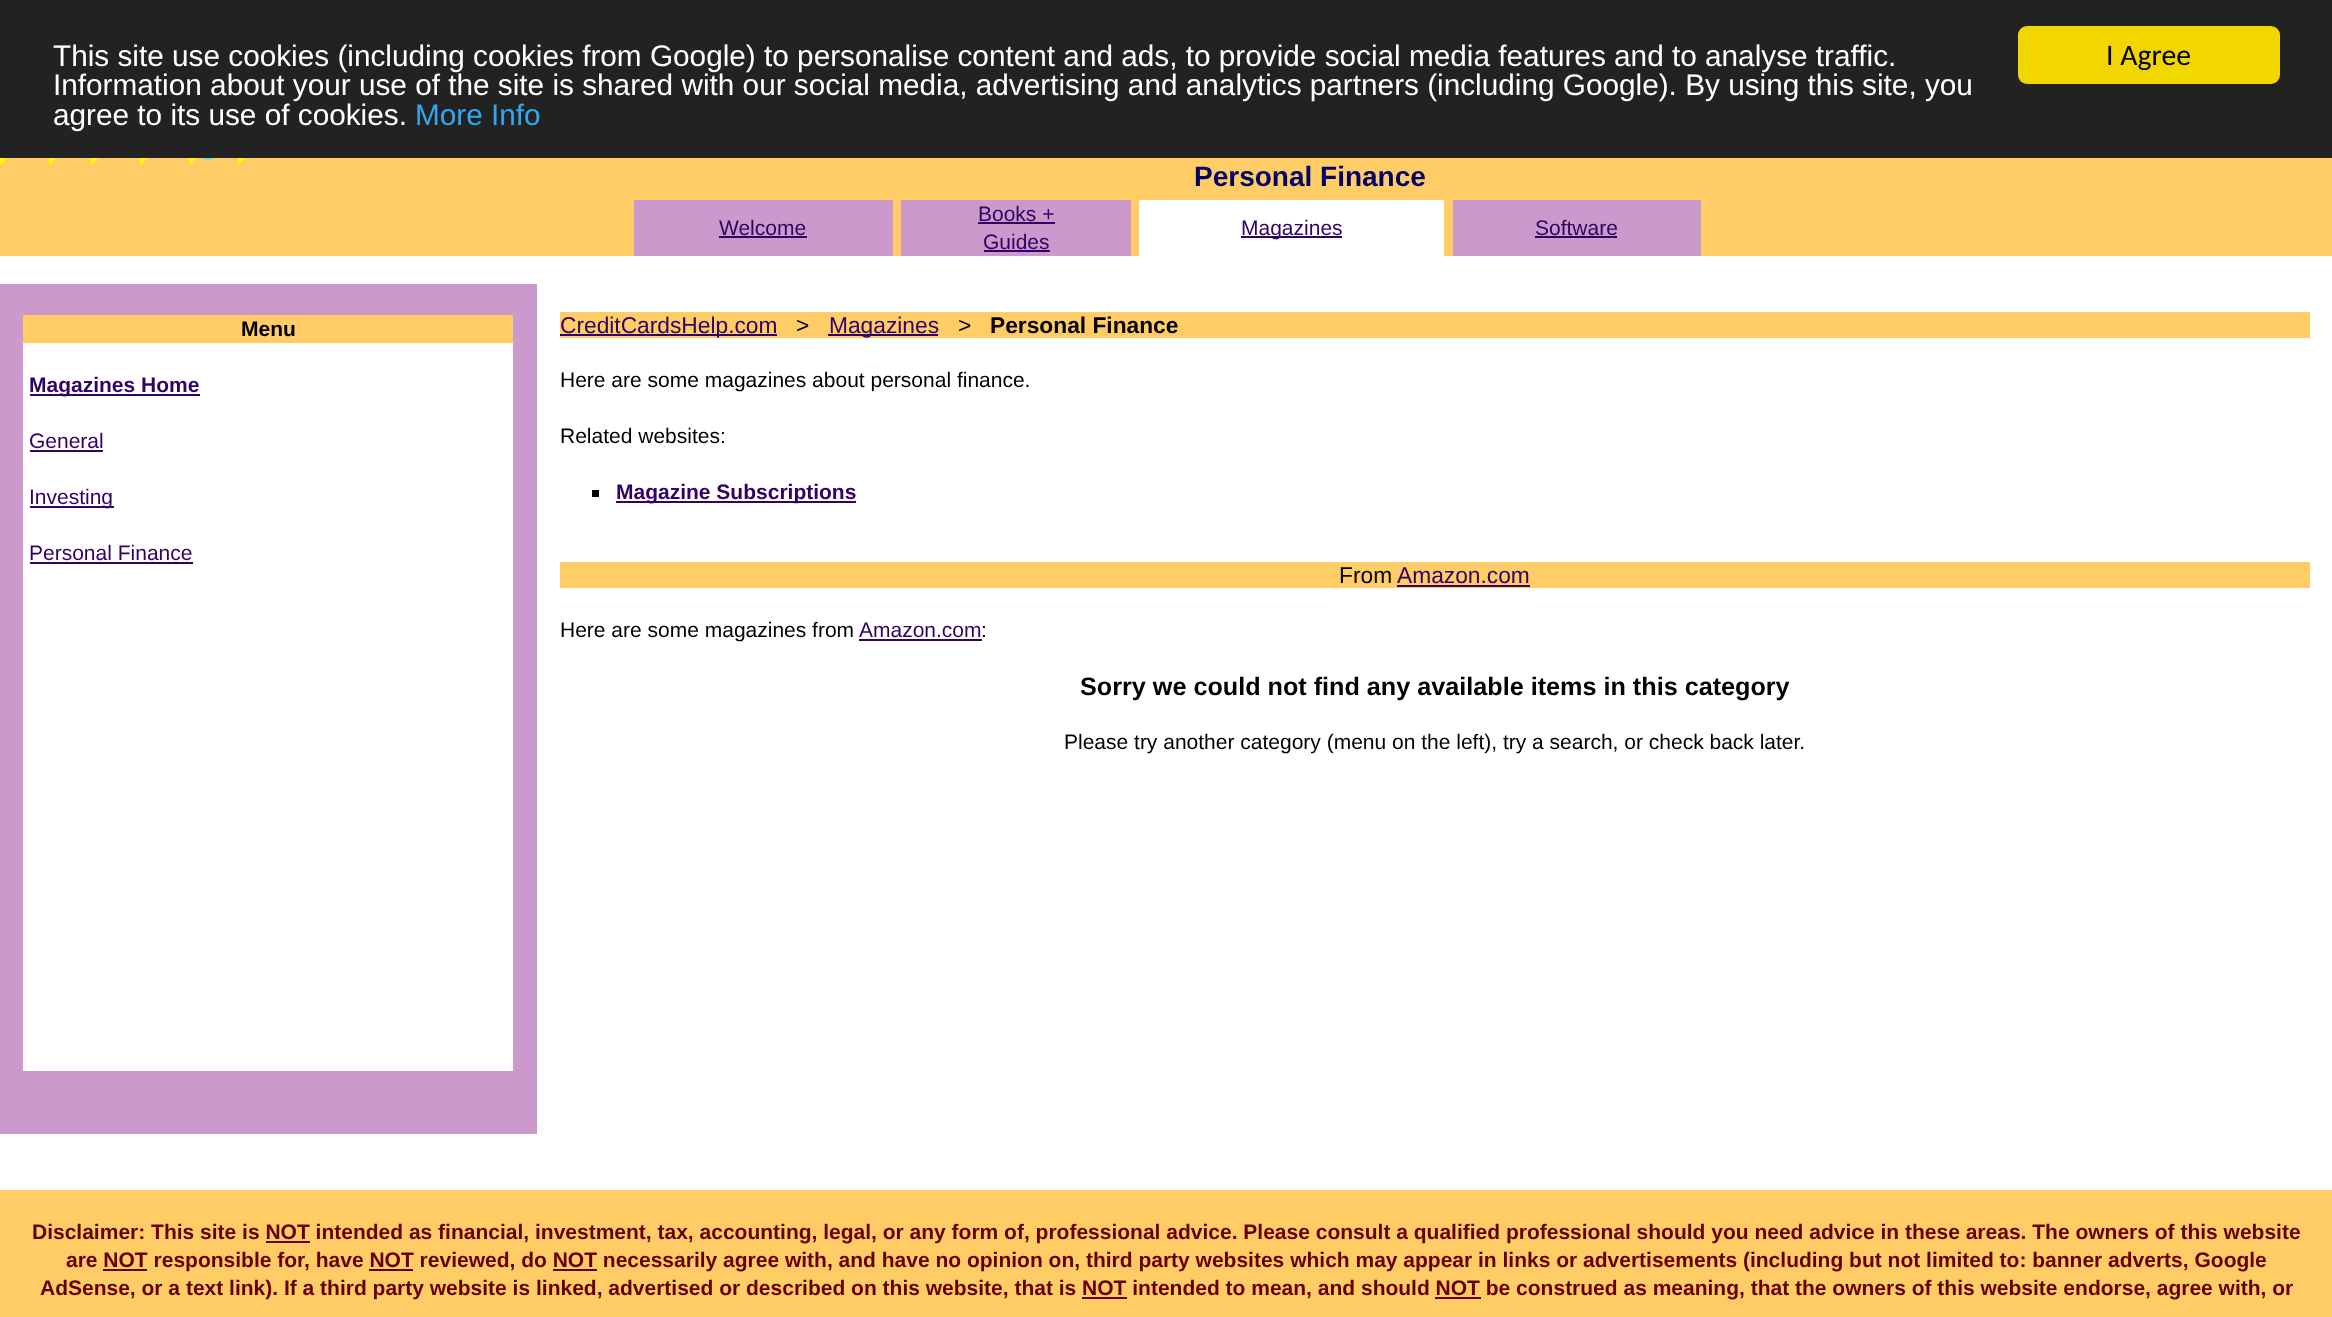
<!DOCTYPE html>
<meta charset="utf-8">
<style>body { margin: 0 } canvas { display: block }</style>
<canvas id="canvas" width="2332" height="1317"></canvas>
<script type="module">
  const canvas = document.getElementById("canvas");
  const ctx = canvas.getContext("2d");
  ctx.miterLimit = 4;
  ctx.fontKerning = "normal";
  async function loadImage(src) {
    const img = new Image();
    img.src = src;
    await img.decode();
    return img;
  }

  ctx.fillStyle = "#ffffff";
  ctx.fillRect(0, 0, 2332, 1317);
  ctx.fillStyle = "#222222";
  ctx.fillRect(0, 0, 2332, 158);
  ctx.font = "29.75px Liberation Sans";
  ctx.fillStyle = "#ffffff";
  ctx.fillText("This site use cookies (including cookies from Google) to personalise content and ads, to provide social media features and to analyse traffic.", 53, 66);
  ctx.fillText("Information about your use of the site is shared with our social media, advertising and analytics partners (including Google). By using this site, you", 53, 95);
  ctx.fillText("agree to its use of cookies.", 53, 125);
  ctx.fillStyle = "#31a8f0";
  ctx.fillText("More Info", 415, 125);
  ctx.fillStyle = "#f1d600";
  ctx.beginPath();
  ctx.roundRect(2018, 26, 262, 58, 9);
  ctx.fill();
  ctx.font = "29.75px Carlito";
  ctx.fillStyle = "#000000";
  ctx.fillText("I Agree", 2106, 65);
  ctx.fillStyle = "#ffcc66";
  ctx.fillRect(0, 158, 2332, 98);
  ctx.drawImage(await loadImage("img1.png"), 0, 158, 246, 7);
  ctx.font = "bold 28px Liberation Sans";
  ctx.fillStyle = "#000066";
  ctx.fillText("Personal Finance", 1194, 186);
  ctx.fillStyle = "#cc99cc";
  ctx.fillRect(634, 200, 259, 56);
  ctx.font = "21px Liberation Sans";
  ctx.fillStyle = "#330066";
  ctx.fillText("Welcome", 719, 235);
  ctx.fillRect(719, 236, 88, 2);
  ctx.fillStyle = "#cc99cc";
  ctx.fillRect(901, 200, 230, 56);
  ctx.fillStyle = "#330066";
  ctx.fillText("Books +", 978, 221);
  ctx.fillRect(978, 222, 77, 2);
  ctx.fillText("Guides", 983, 249);
  ctx.fillRect(984, 250, 66, 2);
  ctx.fillStyle = "#ffffff";
  ctx.fillRect(1139, 200, 305, 56);
  ctx.fillStyle = "#330066";
  ctx.fillRect(1241, 236, 101, 2);
  ctx.fillText("Magazines", 1241, 235);
  ctx.fillStyle = "#cc99cc";
  ctx.fillRect(1453, 200, 248, 56);
  ctx.fillStyle = "#330066";
  ctx.fillText("Software", 1535, 235);
  ctx.fillRect(1535, 236, 82, 2);
  ctx.fillStyle = "#cc99cc";
  ctx.fillRect(0, 284, 537, 850);
  ctx.fillStyle = "#ffcc66";
  ctx.fillRect(560, 312, 1750, 26);
  ctx.fillStyle = "#330066";
  ctx.fillRect(560, 334, 217, 2);
  ctx.font = "22.75px Liberation Sans";
  ctx.fillText("CreditCardsHelp.com", 560, 333);
  ctx.fillStyle = "#000000";
  ctx.fillText(">", 796, 333);
  ctx.fillStyle = "#330066";
  ctx.fillRect(828, 334, 110, 2);
  ctx.fillText("Magazines", 829, 333);
  ctx.fillStyle = "#000000";
  ctx.fillText(">", 958, 333);
  ctx.font = "bold 22.75px Liberation Sans";
  ctx.fillText("Personal Finance", 990, 333);
  ctx.font = "21px Liberation Sans";
  ctx.fillText("Here are some magazines about personal finance.", 560, 387);
  ctx.fillText("Related websites:", 560, 443);
  ctx.fillRect(592, 490, 7, 7);
  ctx.fillStyle = "#330066";
  ctx.fillRect(616, 501, 240, 2);
  ctx.font = "bold 21px Liberation Sans";
  ctx.fillText("Magazine Subscriptions", 616, 499);
  ctx.fillStyle = "#ffcc66";
  ctx.fillRect(560, 562, 1750, 26);
  ctx.font = "22.75px Liberation Sans";
  ctx.fillStyle = "#000000";
  ctx.fillText("From", 1339, 583);
  ctx.fillStyle = "#330066";
  ctx.fillText("Amazon.com", 1397, 583);
  ctx.fillRect(1397, 585, 133, 2);
  ctx.font = "21px Liberation Sans";
  ctx.fillStyle = "#000000";
  ctx.fillText("Here are some magazines from", 560, 637);
  ctx.fillStyle = "#330066";
  ctx.fillText("Amazon.com", 859, 637);
  ctx.fillRect(859, 639, 123, 2);
  ctx.fillStyle = "#000000";
  ctx.fillText(":", 981, 637);
  ctx.font = "bold 25.2px Liberation Sans";
  ctx.fillText("Sorry we could not find any available items in this category", 1080, 695);
  ctx.font = "21px Liberation Sans";
  ctx.fillText("Please try another category (menu on the left), try a search, or check back later.", 1064, 749);
  ctx.fillStyle = "#ffcc66";
  ctx.fillRect(23, 315, 490, 28);
  ctx.font = "bold 21px Liberation Sans";
  ctx.fillStyle = "#000000";
  ctx.fillText("Menu", 241, 336);
  ctx.fillStyle = "#ffffff";
  ctx.fillRect(23, 343, 490, 728);
  ctx.fillStyle = "#330066";
  ctx.fillRect(30, 394, 170, 2);
  ctx.fillText("Magazines Home", 29, 392);
  ctx.font = "21px Liberation Sans";
  ctx.fillText("General", 29, 448);
  ctx.fillRect(30, 450, 73, 2);
  ctx.fillRect(30, 506, 84, 2);
  ctx.fillText("Investing", 29, 504);
  ctx.fillText("Personal Finance", 29, 560);
  ctx.fillRect(30, 562, 163, 2);
  ctx.fillStyle = "#ffcc66";
  ctx.fillRect(0, 1190, 2332, 127);
  ctx.font = "bold 21px Liberation Sans";
  ctx.fillStyle = "#660000";
  ctx.fillText("Disclaimer: This site is NOT intended as financial, investment, tax, accounting, legal, or any form of, professional advice. Please consult a qualified professional should you need advice in these areas. The owners of this website", 32, 1239);
  ctx.fillRect(266, 1241, 44, 2);
  ctx.fillText("are NOT responsible for, have NOT reviewed, do NOT necessarily agree with, and have no opinion on, third party websites which may appear in links or advertisements (including but not limited to: banner adverts, Google", 66, 1267);
  ctx.fillRect(103, 1269, 44, 2);
  ctx.fillRect(369, 1269, 44, 2);
  ctx.fillRect(553, 1269, 44, 2);
  ctx.fillText("AdSense, or a text link). If a third party website is linked, advertised or described on this website, that is NOT intended to mean, and should NOT be construed as meaning, that the owners of this website endorse, agree with, or", 40, 1295);
  ctx.fillRect(1082, 1297, 45, 2);
  ctx.fillRect(1435, 1297, 46, 2);
</script>
